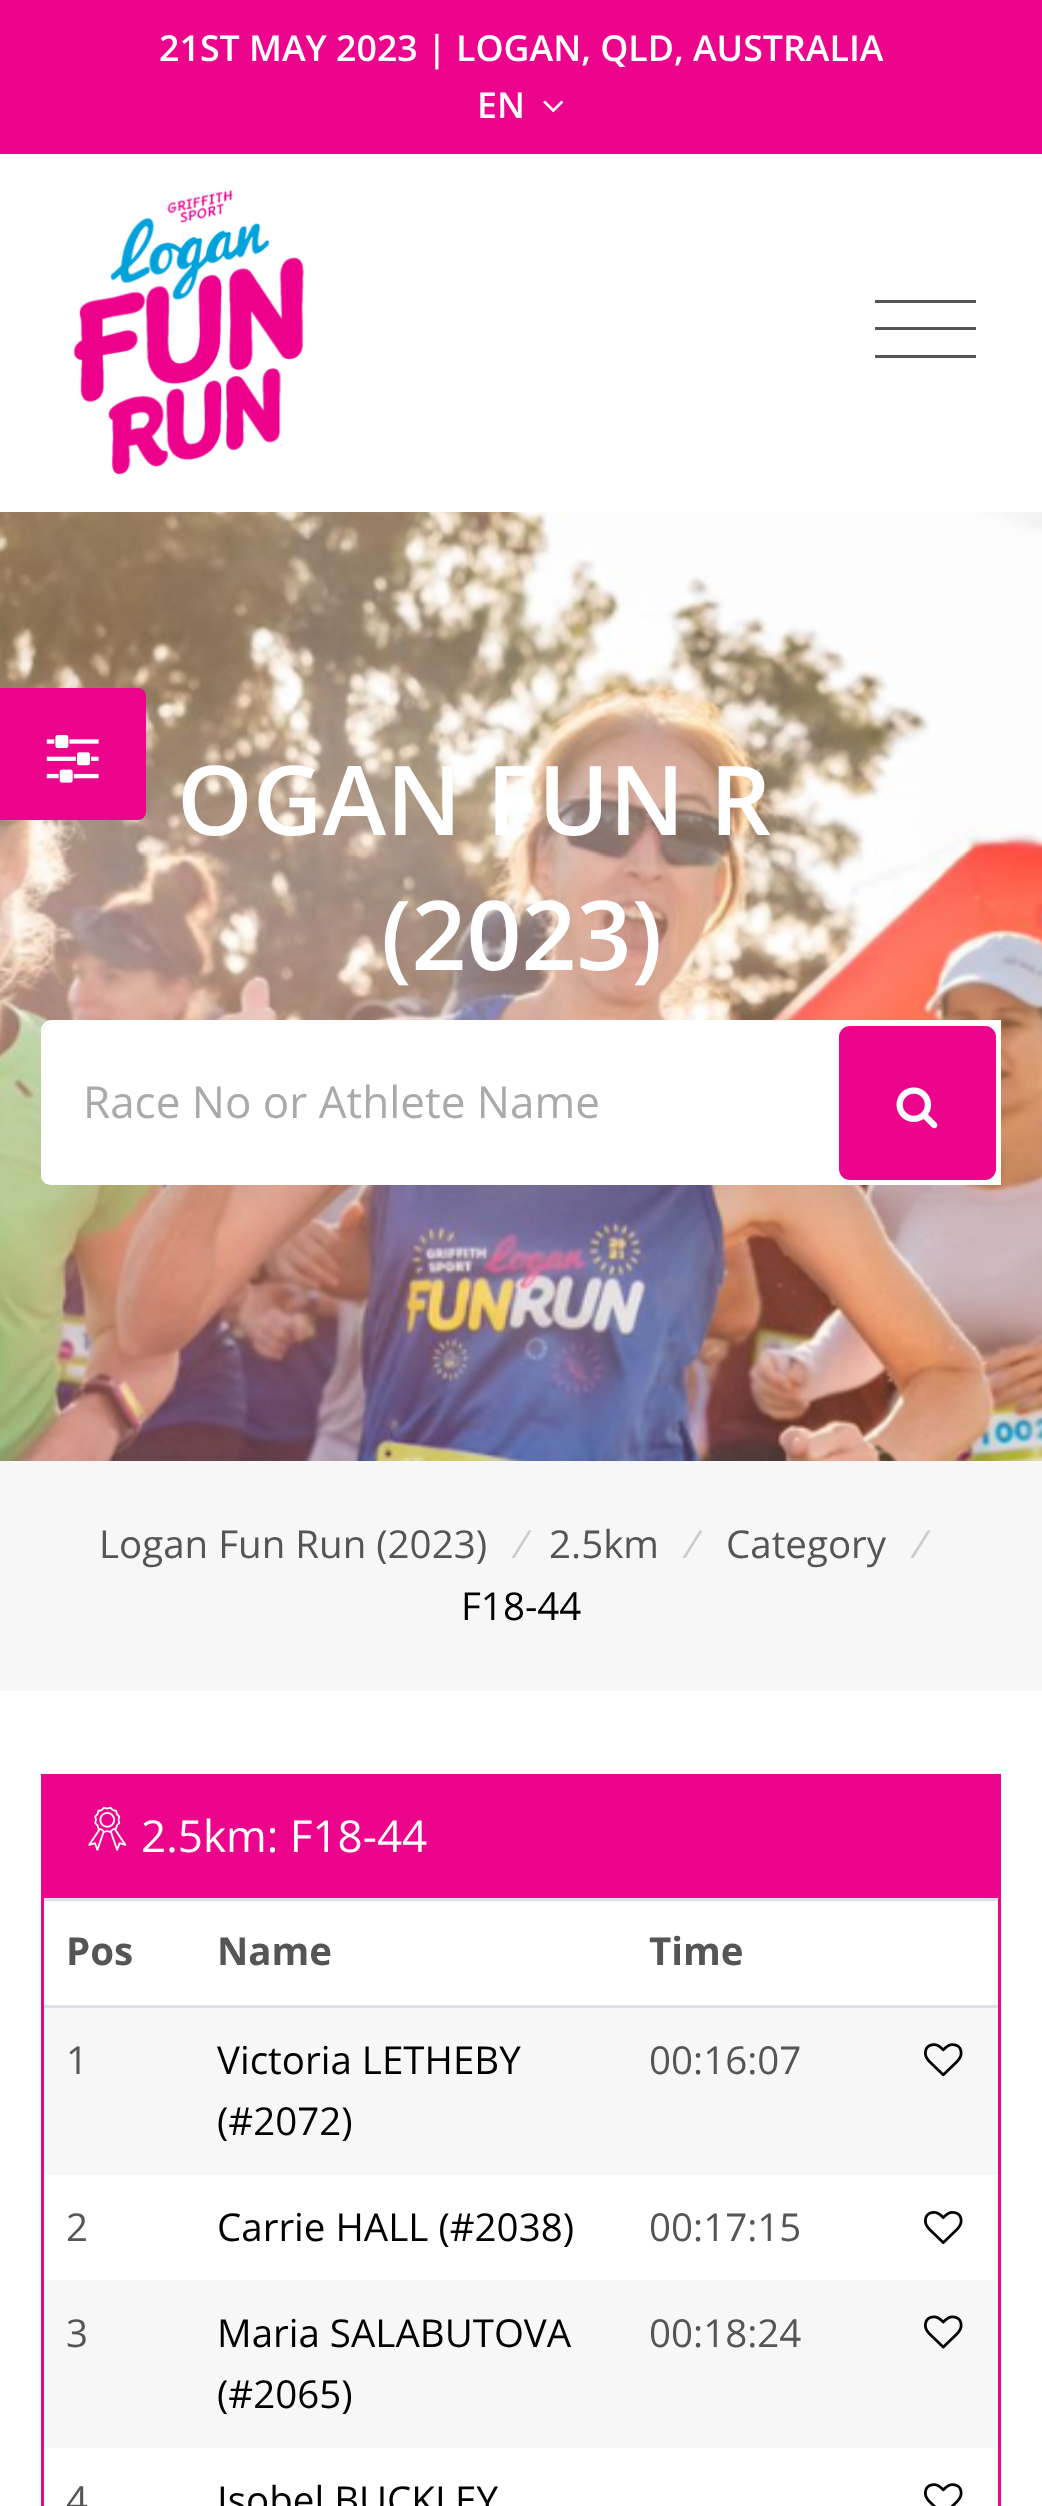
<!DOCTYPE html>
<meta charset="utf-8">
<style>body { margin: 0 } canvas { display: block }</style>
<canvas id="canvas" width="1042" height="2506"></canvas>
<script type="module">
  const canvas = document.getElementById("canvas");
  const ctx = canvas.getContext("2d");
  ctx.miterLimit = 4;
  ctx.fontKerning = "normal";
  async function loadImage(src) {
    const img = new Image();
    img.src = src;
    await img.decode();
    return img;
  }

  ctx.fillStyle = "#ffffff";
  ctx.fillRect(0, 0, 1042, 2506);
  ctx.fillStyle = "#ec058c";
  ctx.fillRect(0, 0, 1042, 154);
  ctx.font = "600 35.75px Open Sans";
  ctx.fillStyle = "#ffffff";
  ctx.fillText("21ST MAY 2023 | LOGAN, QLD, AUSTRALIA", 159, 61);
  ctx.fillText("EN", 477, 118);
  ctx.drawImage(await loadImage("img1.png"), 543, 100, 21, 13);
  ctx.drawImage(await loadImage("img2.png"), 73, 189, 232, 286);
  ctx.fillStyle = "#555555";
  ctx.fillRect(875, 300, 101, 3);
  ctx.fillRect(875, 327, 101, 3);
  ctx.fillRect(875, 355, 101, 3);
  ctx.drawImage(await loadImage("img4.png"), 0, 512, 1042, 949);
  ctx.fillStyle = "#ec058c";
  ctx.beginPath();
  ctx.roundRect(0, 688, 146, 132, [0, 8, 8, 0]);
  ctx.fill();
  ctx.drawImage(await loadImage("img3.png"), 46, 735, 53, 48);
  ctx.font = "600 96.25px Open Sans";
  ctx.fillStyle = "#ffffff";
  ctx.fillText("OGAN FUN R", 177, 835);
  ctx.fillText("(2023)", 381, 970);
  ctx.fillStyle = "rgba(0, 0, 0, 0.09)";
  ctx.filter = "blur(34.5px)";
  ctx.beginPath();
  ctx.rect(74, 1108, 894, 99);
  ctx.fill();
  ctx.filter = "none";
  ctx.fillStyle = "#ffffff";
  ctx.beginPath();
  ctx.roundRect(44, 1023, 789, 160, [7, 0, 0, 7]);
  ctx.fill();
  ctx.beginPath();
  ctx.moveTo(51, 1020);
  ctx.lineTo(833, 1020);
  ctx.lineTo(833, 1185);
  ctx.lineTo(51, 1185);
  ctx.bezierCurveTo(46, 1185, 41, 1181, 41, 1176);
  ctx.lineTo(41, 1030);
  ctx.bezierCurveTo(41, 1025, 46, 1020, 51, 1020);
  ctx.closePath();
  ctx.moveTo(51, 1023);
  ctx.lineTo(833, 1023);
  ctx.lineTo(833, 1182);
  ctx.lineTo(51, 1182);
  ctx.bezierCurveTo(47, 1182, 44, 1179, 44, 1176);
  ctx.lineTo(44, 1030);
  ctx.bezierCurveTo(44, 1026, 47, 1023, 51, 1023);
  ctx.closePath();
  ctx.fill("evenodd");
  ctx.font = "44px Open Sans";
  ctx.fillStyle = "#aaaaaa";
  ctx.fillText("Race No or Athlete Name", 83, 1118);
  ctx.fillStyle = "#ffffff";
  ctx.fillRect(833, 1020, 168, 165);
  ctx.fillStyle = "#ec058c";
  ctx.beginPath();
  ctx.roundRect(839, 1026, 157, 154, 11);
  ctx.fill();
  ctx.drawImage(await loadImage("img5.png"), 896, 1087, 42, 42);
  ctx.fillStyle = "#f7f7f7";
  ctx.fillRect(0, 1461, 1042, 230);
  ctx.font = "38.5px Open Sans";
  ctx.fillStyle = "#555555";
  ctx.fillText("Logan Fun Run (2023)", 99, 1558);
  ctx.font = "italic 38.5px Open Sans";
  ctx.fillStyle = "#cccccc";
  ctx.fillText("/", 511, 1558);
  ctx.font = "38.5px Open Sans";
  ctx.fillStyle = "#555555";
  ctx.fillText("2.5km", 549, 1558);
  ctx.font = "italic 38.5px Open Sans";
  ctx.fillStyle = "#cccccc";
  ctx.fillText("/", 682, 1558);
  ctx.font = "38.5px Open Sans";
  ctx.fillStyle = "#555555";
  ctx.fillText("Category", 726, 1558);
  ctx.font = "italic 38.5px Open Sans";
  ctx.fillStyle = "#cccccc";
  ctx.fillText("/", 910, 1558);
  ctx.font = "38.5px Open Sans";
  ctx.fillStyle = "#000000";
  ctx.fillText("F18-44", 461, 1620);
  ctx.strokeStyle = "#ec058c";
  ctx.lineWidth = 3;
  ctx.strokeRect(42.5, 1775.5, 957, 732);
  ctx.fillStyle = "#ec058c";
  ctx.fillRect(44, 1777, 954, 121);
  ctx.drawImage(await loadImage("img6.png"), 88, 1806, 39, 45);
  ctx.font = "44px Open Sans";
  ctx.fillStyle = "#ffffff";
  ctx.fillText("2.5km: F18-44", 141, 1852);
  ctx.fillStyle = "#dee2e6";
  ctx.fillRect(44, 1898, 954, 3);
  ctx.fillRect(44, 2005, 954, 3);
  ctx.font = "bold 38.5px Open Sans";
  ctx.fillStyle = "#555555";
  ctx.fillText("Pos", 66, 1965);
  ctx.fillText("Name", 217, 1965);
  ctx.fillText("Time", 649, 1965);
  ctx.fillStyle = "#f7f7f7";
  ctx.fillRect(44, 2008, 954, 167);
  ctx.font = "38.5px Open Sans";
  ctx.fillStyle = "#555555";
  ctx.fillText("1", 66, 2074);
  ctx.fillStyle = "#000000";
  ctx.fillText("Victoria LETHEBY", 217, 2074);
  ctx.fillText("(#2072)", 217, 2135);
  ctx.fillStyle = "#555555";
  ctx.fillText("00:16:07", 649, 2074);
  ctx.drawImage(await loadImage("img7.png"), 924, 2043, 39, 34);
  ctx.fillText("2", 66, 2241);
  ctx.fillStyle = "#000000";
  ctx.fillText("Carrie HALL (#2038)", 217, 2241);
  ctx.fillStyle = "#555555";
  ctx.fillText("00:17:15", 649, 2241);
  ctx.drawImage(await loadImage("img8.png"), 924, 2211, 39, 33);
  ctx.fillStyle = "#f7f7f7";
  ctx.fillRect(44, 2280, 954, 168);
  ctx.fillStyle = "#555555";
  ctx.fillText("3", 66, 2347);
  ctx.fillStyle = "#000000";
  ctx.fillText("Maria SALABUTOVA", 217, 2347);
  ctx.fillText("(#2065)", 217, 2408);
  ctx.fillStyle = "#555555";
  ctx.fillText("00:18:24", 649, 2347);
  ctx.drawImage(await loadImage("img9.png"), 924, 2315, 39, 34);
  ctx.fillText("4", 66, 2514);
  ctx.fillStyle = "#000000";
  ctx.fillText("Isobel BUCKLEY", 217, 2514);
  ctx.drawImage(await loadImage("img10.png"), 924, 2483, 39, 23);
</script>
